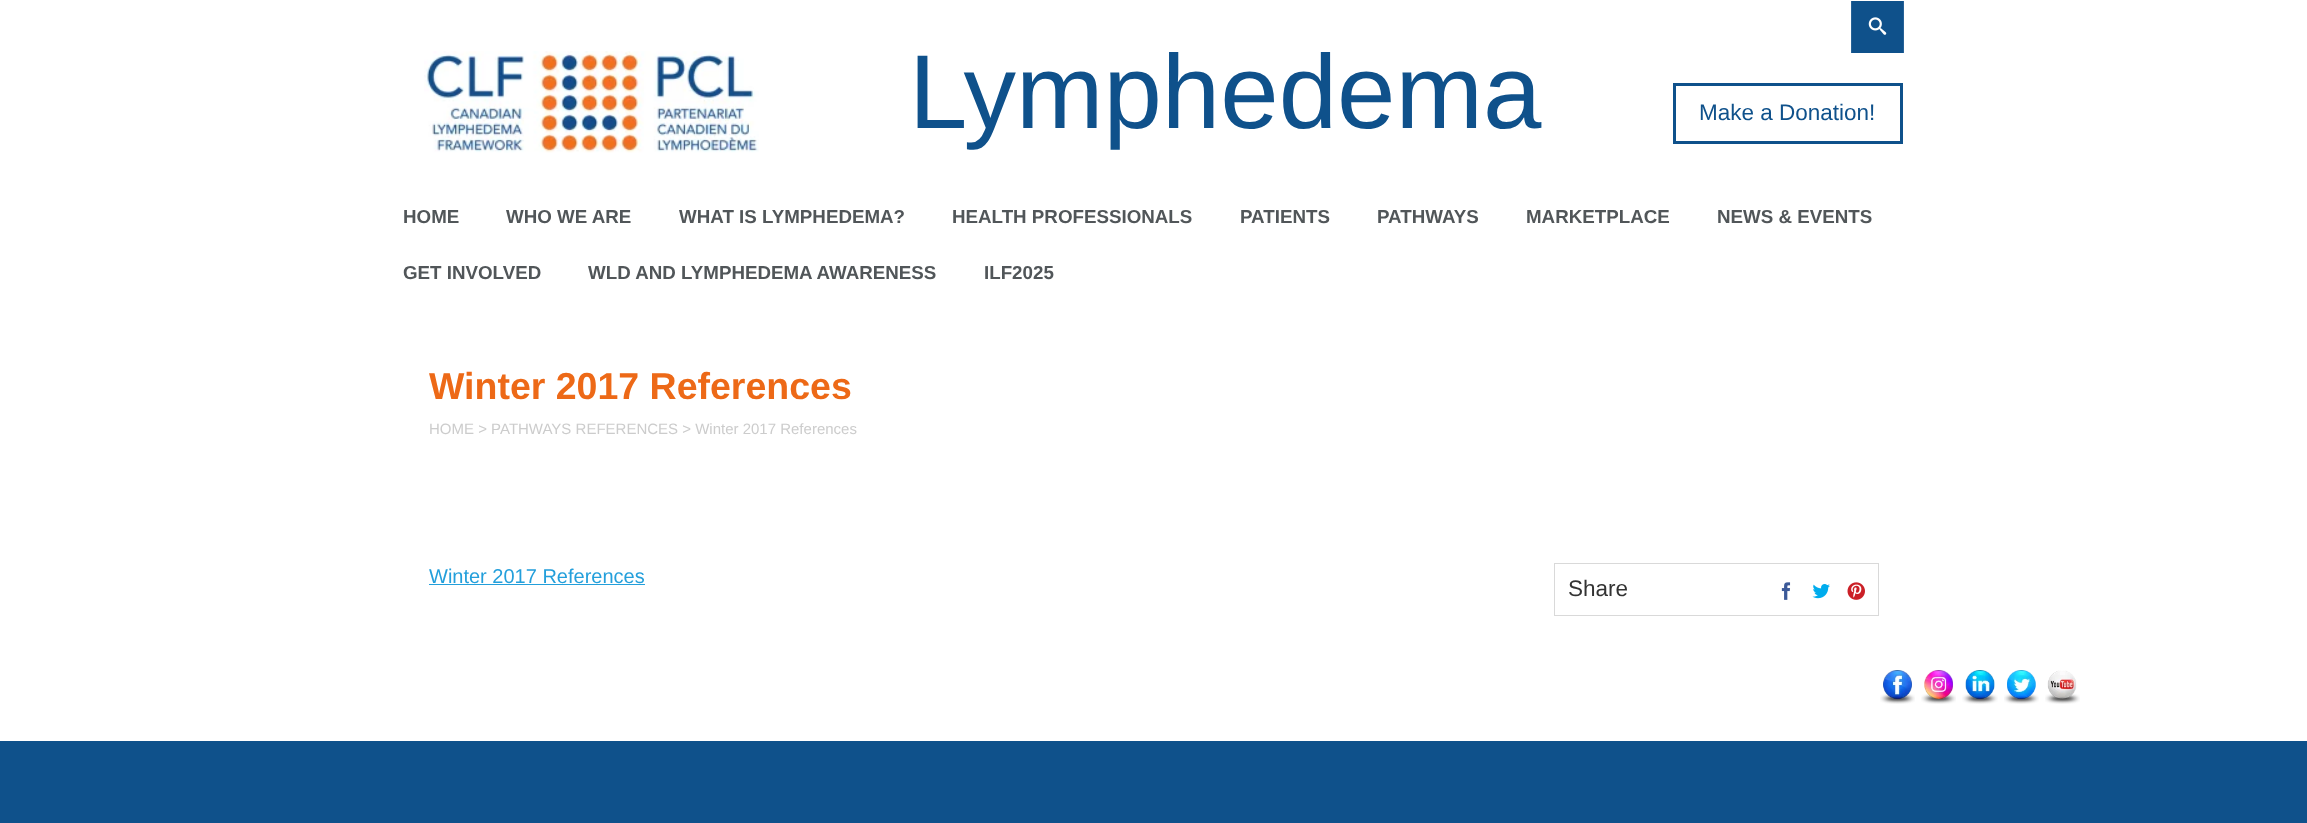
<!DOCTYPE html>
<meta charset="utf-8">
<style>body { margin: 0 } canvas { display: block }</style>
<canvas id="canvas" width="2307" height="823"></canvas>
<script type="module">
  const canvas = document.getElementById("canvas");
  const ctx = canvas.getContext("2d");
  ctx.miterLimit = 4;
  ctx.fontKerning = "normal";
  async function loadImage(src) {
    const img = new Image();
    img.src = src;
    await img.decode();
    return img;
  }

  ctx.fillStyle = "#ffffff";
  ctx.fillRect(0, 0, 2307, 823);
  ctx.drawImage(await loadImage("img1.png"), 424, 51, 335, 102);
  ctx.font = "105px Liberation Sans";
  ctx.fillStyle = "#0f518b";
  ctx.fillText("Lymphedema", 909, 128);
  ctx.fillRect(1852, 1, 51, 52);
  ctx.fillStyle = "#276297";
  ctx.fillRect(1903, 1, 1, 52);
  ctx.fillRect(1851, 1, 1, 52);
  ctx.drawImage(await loadImage("img2.png"), 1868, 17, 19, 18);
  ctx.strokeStyle = "#0f518b";
  ctx.lineWidth = 3;
  ctx.strokeRect(1674.5, 84.5, 227, 58);
  ctx.font = "22.5px Liberation Sans";
  ctx.fillStyle = "#0f518b";
  ctx.fillText("Make a Donation!", 1699, 120);
  ctx.font = "bold 18.75px Liberation Sans";
  ctx.fillStyle = "#515659";
  ctx.fillText("HOME", 403, 223);
  ctx.fillText("WHO WE ARE", 506, 223);
  ctx.fillText("WHAT IS LYMPHEDEMA?", 679, 223);
  ctx.fillText("HEALTH PROFESSIONALS", 952, 223);
  ctx.fillText("PATIENTS", 1240, 223);
  ctx.fillText("PATHWAYS", 1377, 223);
  ctx.fillText("MARKETPLACE", 1526, 223);
  ctx.fillText("NEWS & EVENTS", 1717, 223);
  ctx.fillText("GET INVOLVED", 403, 279);
  ctx.fillText("WLD AND LYMPHEDEMA AWARENESS", 588, 279);
  ctx.fillText("ILF2025", 984, 279);
  ctx.font = "bold 37.5px Liberation Sans";
  ctx.fillStyle = "#ed6917";
  ctx.fillText("Winter 2017 References", 429, 399);
  ctx.font = "15px Liberation Sans";
  ctx.fillStyle = "#cccccc";
  ctx.fillText("HOME > PATHWAYS REFERENCES > Winter 2017 References", 429, 434);
  ctx.font = "20px Liberation Sans";
  ctx.fillStyle = "#239fdb";
  ctx.fillText("Winter 2017 References", 429, 583);
  ctx.fillRect(429, 584, 216, 1);
  ctx.strokeStyle = "#d9d9d9";
  ctx.lineWidth = 1;
  ctx.strokeRect(1554.5, 563.5, 324, 52);
  ctx.font = "22.5px Liberation Sans";
  ctx.fillStyle = "#333333";
  ctx.fillText("Share", 1568, 596);
  ctx.drawImage(await loadImage("img3.png"), 1781, 582, 10, 18);
  ctx.drawImage(await loadImage("img4.png"), 1812, 584, 18, 15);
  ctx.drawImage(await loadImage("img5.png"), 1847, 582, 18, 18);
  ctx.fillStyle = "#0f518b";
  ctx.fillRect(0, 741, 2307, 82);
  ctx.drawImage(await loadImage("img6.png"), 1880, 670, 35, 34);
  ctx.drawImage(await loadImage("img7.png"), 1921, 670, 35, 34);
  ctx.drawImage(await loadImage("img8.png"), 1962, 670, 36, 34);
  ctx.drawImage(await loadImage("img9.png"), 2004, 670, 35, 34);
  ctx.drawImage(await loadImage("img10.png"), 2045, 670, 35, 34);
</script>
